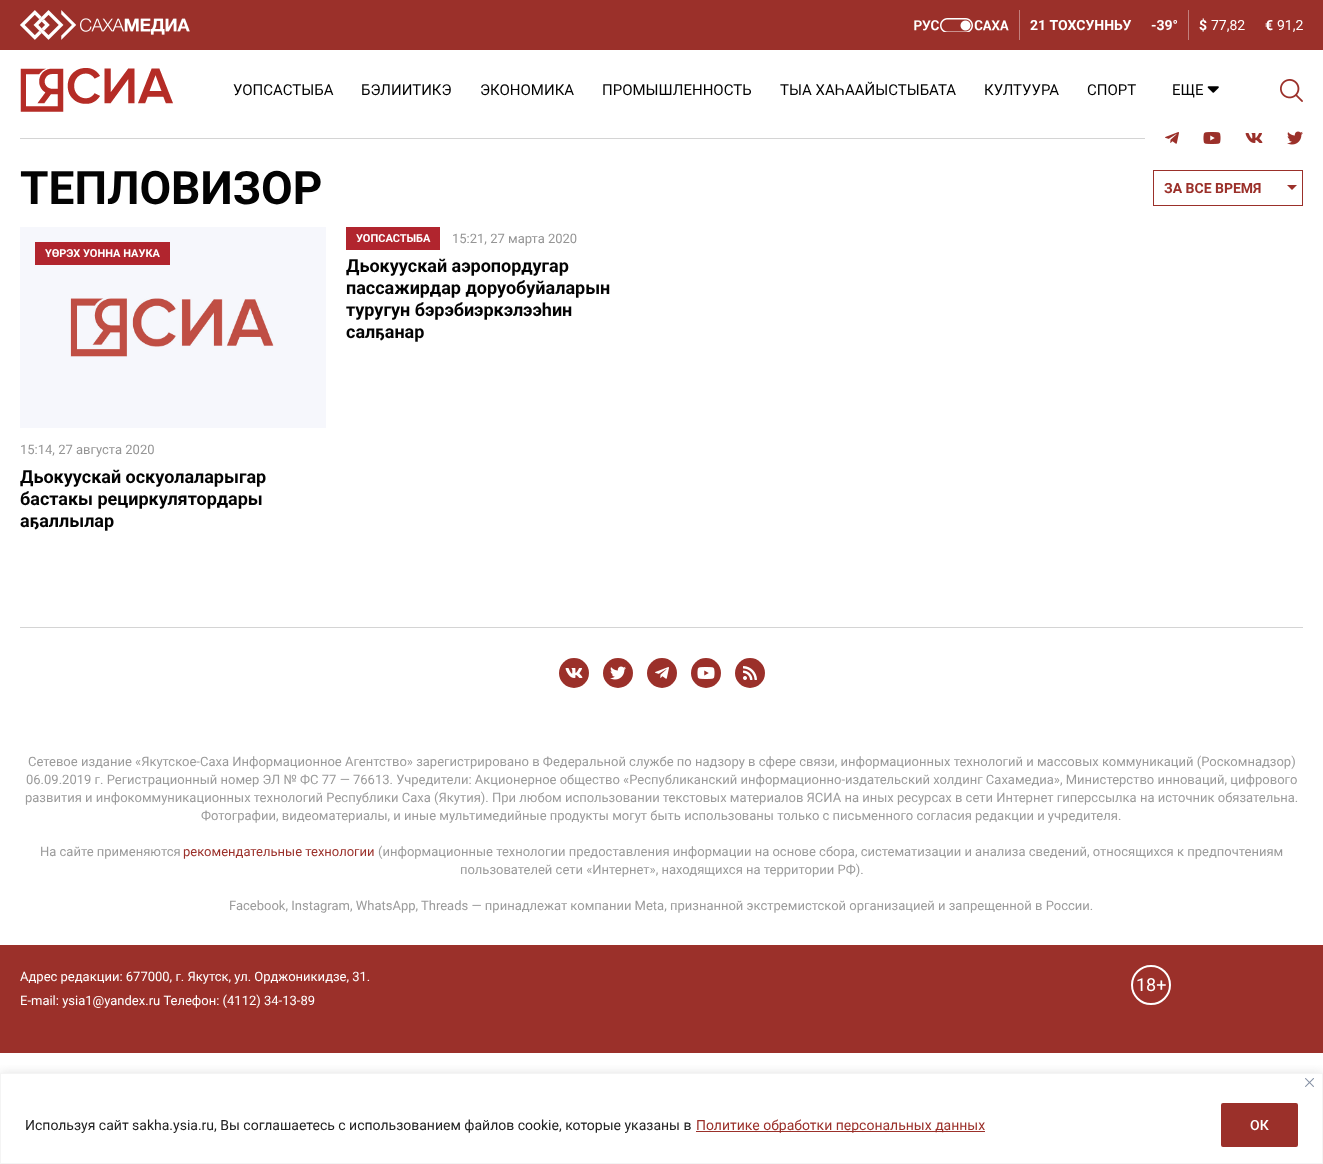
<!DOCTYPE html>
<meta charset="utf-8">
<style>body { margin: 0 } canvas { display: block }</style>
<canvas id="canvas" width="1323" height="1164"></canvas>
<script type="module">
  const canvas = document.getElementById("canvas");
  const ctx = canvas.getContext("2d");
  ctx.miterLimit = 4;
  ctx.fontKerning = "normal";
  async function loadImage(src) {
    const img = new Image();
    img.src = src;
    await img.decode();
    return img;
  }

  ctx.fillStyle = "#ffffff";
  ctx.fillRect(0, 0, 1323, 1164);
  ctx.fillStyle = "#9b302a";
  ctx.fillRect(0, 0, 1323, 50);
  ctx.drawImage(await loadImage("img1.png"), 20, 10, 170, 30);
  ctx.fillStyle = "#c2807d";
  ctx.fillRect(1019, 10, 1, 30);
  ctx.drawImage(await loadImage("img2.png"), 914, 18, 95, 14);
  ctx.font = "bold 14px Roboto";
  ctx.fillStyle = "#ffffff";
  ctx.fillText("21 ТОХСУННЬУ", 1030, 30);
  ctx.fillStyle = "#c2807d";
  ctx.fillRect(1188, 10, 1, 30);
  ctx.fillStyle = "#ffffff";
  ctx.fillText("-39°", 1151, 30);
  ctx.fillText("$", 1199, 30);
  ctx.font = "14px Roboto";
  ctx.fillText("77,82", 1211, 30);
  ctx.font = "bold 14px Roboto";
  ctx.fillText("€", 1265, 30);
  ctx.font = "14px Roboto";
  ctx.fillText("91,2", 1277, 30);
  ctx.drawImage(await loadImage("img3.png"), 20, 68, 153, 44);
  ctx.font = "15px Roboto";
  ctx.fillStyle = "#030303";
  ctx.fillText("УОПСАСТЫБА", 233, 95);
  ctx.fillText("БЭЛИИТИКЭ", 361, 95);
  ctx.fillText("ЭКОНОМИКА", 480, 95);
  ctx.fillText("ПРОМЫШЛЕННОСТЬ", 602, 95);
  ctx.fillText("ТЫА ХАҺААЙЫСТЫБАТА", 780, 95);
  ctx.fillText("КУЛТУУРА", 984, 95);
  ctx.fillText("СПОРТ", 1087, 95);
  ctx.fillText("ЕЩЕ", 1172, 95);
  ctx.drawImage(await loadImage("img4.png"), 1207, 86, 12, 7);
  ctx.drawImage(await loadImage("img5.png"), 1280, 79, 23, 23);
  ctx.fillStyle = "#d4d4d4";
  ctx.fillRect(20, 138, 1125, 1);
  ctx.drawImage(await loadImage("img6.png"), 1165, 132, 14, 12);
  ctx.drawImage(await loadImage("img7.png"), 1203, 132, 18, 12);
  ctx.drawImage(await loadImage("img8.png"), 1245, 133, 18, 10);
  ctx.drawImage(await loadImage("img9.png"), 1287, 131, 16, 14);
  ctx.font = "bold 46px Roboto";
  ctx.fillStyle = "#030303";
  ctx.fillText("ТЕПЛОВИЗОР", 20, 204);
  ctx.strokeStyle = "#9b302a";
  ctx.strokeRect(1153.5, 170.5, 149, 35);
  ctx.font = "bold 14px Roboto";
  ctx.fillStyle = "#9b302a";
  ctx.fillText("ЗА ВСЕ ВРЕМЯ", 1164, 193);
  ctx.beginPath();
  ctx.moveTo(1287, 185);
  ctx.lineTo(1297, 185);
  ctx.lineTo(1292, 190);
  ctx.closePath();
  ctx.fill();
  ctx.drawImage(await loadImage("img10.png"), 20, 227, 306, 201);
  ctx.fillStyle = "#b1252e";
  ctx.fillRect(35, 242, 135, 23);
  ctx.font = "bold 11px Roboto";
  ctx.fillStyle = "#ffffff";
  ctx.fillText("ҮӨРЭХ УОННА НАУКА", 45, 257);
  ctx.font = "13px Roboto";
  ctx.fillStyle = "#959595";
  ctx.fillText("15:14, 27 августа 2020", 20, 454);
  ctx.font = "bold 18px Roboto";
  ctx.fillStyle = "#030303";
  ctx.fillText("Дьокуускай оскуолаларыгар", 20, 483);
  ctx.fillText("бастакы рециркулятордары", 20, 505);
  ctx.fillText("аҕаллылар", 20, 527);
  ctx.fillStyle = "#b1252e";
  ctx.fillRect(346, 227, 94, 23);
  ctx.font = "bold 11px Roboto";
  ctx.fillStyle = "#ffffff";
  ctx.fillText("УОПСАСТЫБА", 356, 242);
  ctx.font = "13px Roboto";
  ctx.fillStyle = "#959595";
  ctx.fillText("15:21, 27 марта 2020", 452, 243);
  ctx.font = "bold 18px Roboto";
  ctx.fillStyle = "#030303";
  ctx.fillText("Дьокуускай аэропордугар", 346, 272);
  ctx.fillText("пассажирдар доруобуйаларын", 346, 294);
  ctx.fillText("туругун бэрэбиэркэлээһин", 346, 316);
  ctx.fillText("салҕанар", 346, 338);
  ctx.fillStyle = "#d4d4d4";
  ctx.fillRect(20, 627, 1283, 1);
  ctx.fillStyle = "#9b302a";
  ctx.beginPath();
  ctx.arc(574, 673, 15, 0, Math.PI * 2);
  ctx.fill();
  ctx.drawImage(await loadImage("img11.png"), 565, 668, 18, 10);
  ctx.beginPath();
  ctx.arc(618, 673, 15, 0, Math.PI * 2);
  ctx.fill();
  ctx.drawImage(await loadImage("img12.png"), 610, 666, 16, 14);
  ctx.beginPath();
  ctx.arc(662, 673, 15, 0, Math.PI * 2);
  ctx.fill();
  ctx.drawImage(await loadImage("img13.png"), 655, 667, 14, 12);
  ctx.beginPath();
  ctx.arc(706, 673, 15, 0, Math.PI * 2);
  ctx.fill();
  ctx.drawImage(await loadImage("img14.png"), 697, 667, 18, 12);
  ctx.beginPath();
  ctx.arc(750, 673, 15, 0, Math.PI * 2);
  ctx.fill();
  ctx.drawImage(await loadImage("img15.png"), 743, 666, 14, 14);
  ctx.font = "13px Roboto";
  ctx.fillStyle = "#9b9b9b";
  ctx.fillText("Сетевое издание «Якутское-Саха Информационное Агентство» зарегистрировано в Федеральной службе по надзору в сфере связи, информационных технологий и массовых коммуникаций (Роскомнадзор)", 28, 766);
  ctx.fillText("06.09.2019 г. Регистрационный номер ЭЛ № ФС 77 — 76613. Учредители: Акционерное общество «Республиканский информационно-издательский холдинг Сахамедиа», Министерство инноваций, цифрового", 26, 784);
  ctx.fillText("развития и инфокоммуникационных технологий Республики Саха (Якутия). При любом использовании текстовых материалов ЯСИА на иных ресурсах в сети Интернет гиперссылка на источник обязательна.", 25, 802);
  ctx.fillText("Фотографии, видеоматериалы, и иные мультимедийные продукты могут быть использованы только с письменного согласия редакции и учредителя.", 201, 820);
  ctx.fillText("На сайте применяются", 40, 856);
  ctx.fillStyle = "#9b302a";
  ctx.fillText("рекомендательные технологии", 183, 856);
  ctx.fillStyle = "#9b9b9b";
  ctx.fillText("(информационные технологии предоставления информации на основе сбора, систематизации и анализа сведений, относящихся к предпочтениям", 378, 856);
  ctx.fillText("пользователей сети «Интернет», находящихся на территории РФ).", 460, 874);
  ctx.fillText("Facebook, Instagram, WhatsApp, Threads — принадлежат компании Meta, признанной экстремистской организацией и запрещенной в России.", 229, 910);
  ctx.fillStyle = "#9b302a";
  ctx.fillRect(0, 945, 1323, 108);
  ctx.fillStyle = "#ffffff";
  ctx.fillText("Адрес редакции: 677000, г. Якутск, ул. Орджоникидзе, 31.", 20, 981);
  ctx.fillText("E-mail: ysia1@yandex.ru Телефон: (4112) 34-13-89", 20, 1005);
  ctx.beginPath();
  ctx.arc(1151, 985, 19, 0, Math.PI * 2);
  ctx.strokeStyle = "#ffffff";
  ctx.lineWidth = 2;
  ctx.stroke();
  ctx.font = "18px Roboto";
  ctx.fillText("18+", 1136, 991);
  ctx.save();
  ctx.beginPath();
  ctx.rect(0, 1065, 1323, 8);
  ctx.clip();
  ctx.fillStyle = "rgba(172, 171, 171, 0.3)";
  ctx.filter = "blur(5px)";
  ctx.beginPath();
  ctx.rect(0, 1072, 1323, 91);
  ctx.fill();
  ctx.filter = "none";
  ctx.restore();
  ctx.strokeStyle = "#f4f4f4";
  ctx.lineWidth = 1;
  ctx.strokeRect(0.5, 1073.5, 1322, 90);
  ctx.drawImage(await loadImage("img16.png"), 1305, 1078, 9, 9);
  ctx.font = "14px Roboto";
  ctx.fillStyle = "#212121";
  ctx.fillText("Используя сайт sakha.ysia.ru, Вы соглашаетесь с использованием файлов cookie, которые указаны в", 25, 1130);
  ctx.fillStyle = "#9b302a";
  ctx.fillRect(696, 1131, 289, 1);
  ctx.fillText("Политике обработки персональных данных", 696, 1130);
  ctx.beginPath();
  ctx.roundRect(1222, 1104, 75, 42, 1);
  ctx.fill();
  ctx.strokeStyle = "#9b302a";
  ctx.lineWidth = 2;
  ctx.stroke();
  ctx.font = "500 14px Roboto";
  ctx.fillStyle = "#ffffff";
  ctx.fillText("ОК", 1250, 1130);
</script>
